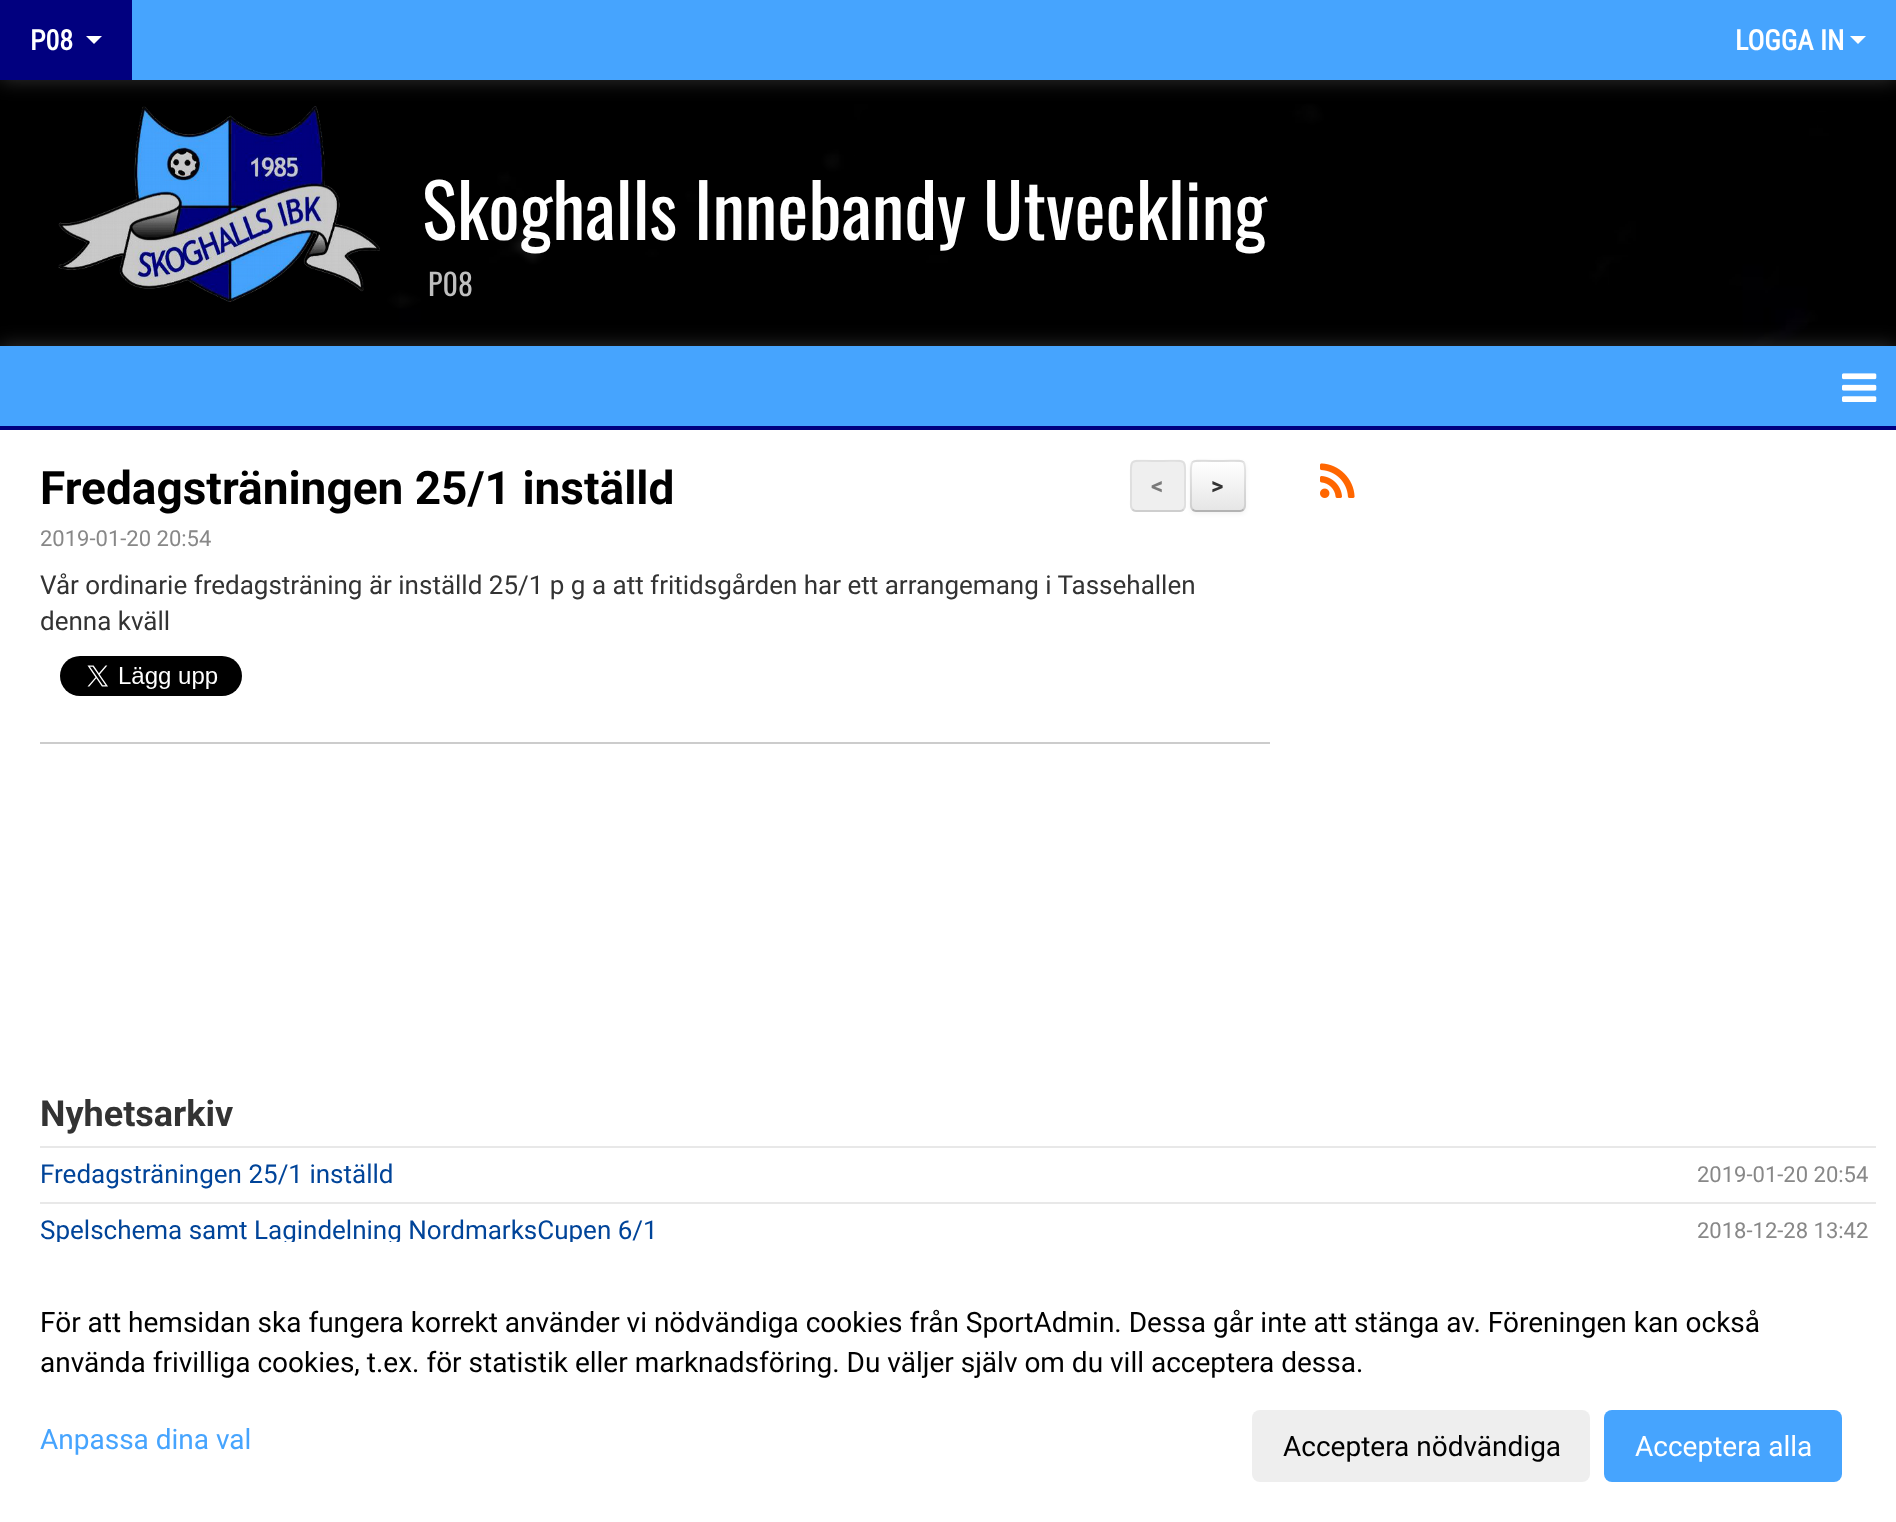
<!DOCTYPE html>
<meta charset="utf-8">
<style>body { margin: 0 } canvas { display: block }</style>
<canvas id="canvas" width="1896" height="1522"></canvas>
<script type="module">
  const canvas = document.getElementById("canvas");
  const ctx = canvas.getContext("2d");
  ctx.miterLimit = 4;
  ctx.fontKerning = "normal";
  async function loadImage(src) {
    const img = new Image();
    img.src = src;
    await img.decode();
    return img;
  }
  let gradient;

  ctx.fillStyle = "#ffffff";
  ctx.fillRect(0, 0, 1896, 1522);
  ctx.drawImage(await loadImage("img1.png"), 0, 80, 1896, 266);
  ctx.fillStyle = "#333333";
  ctx.filter = "blur(10px)";
  ctx.beginPath();
  ctx.rect(0, 0, 1896, 80);
  ctx.fill();
  ctx.filter = "none";
  ctx.fillStyle = "#46a4fe";
  ctx.fillRect(132, 0, 1764, 80);
  ctx.fillStyle = "#01007f";
  ctx.fillRect(0, 0, 132, 80);
  ctx.font = "bold 28px Roboto Condensed";
  ctx.fillStyle = "#ffffff";
  ctx.fillText("P08", 30, 50);
  ctx.beginPath();
  ctx.moveTo(86, 36);
  ctx.lineTo(102, 36);
  ctx.lineTo(94, 44);
  ctx.closePath();
  ctx.fill();
  ctx.fillText("LOGGA IN", 1735, 50);
  ctx.beginPath();
  ctx.moveTo(1850, 36);
  ctx.lineTo(1866, 36);
  ctx.lineTo(1858, 44);
  ctx.closePath();
  ctx.fill();
  ctx.drawImage(await loadImage("img2.png"), 58, 106, 322, 196);
  ctx.font = "74px Oswald";
  ctx.fillText("Skoghalls Innebandy Utveckling", 422, 240);
  ctx.font = "30px Oswald";
  ctx.fillStyle = "#bfbfbf";
  ctx.fillText("P08", 428, 296);
  ctx.fillStyle = "#333333";
  ctx.filter = "blur(10px)";
  ctx.beginPath();
  ctx.rect(0, 346, 1896, 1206);
  ctx.fill();
  ctx.filter = "none";
  ctx.fillStyle = "#ffffff";
  ctx.fillRect(0, 430, 1896, 812);
  ctx.fillStyle = "#46a4fe";
  ctx.fillRect(0, 346, 1896, 80);
  ctx.fillStyle = "#01007f";
  ctx.fillRect(0, 426, 1896, 4);
  ctx.drawImage(await loadImage("img3.png"), 1842, 373, 35, 29);
  ctx.font = "bold 46px Roboto";
  ctx.fillStyle = "#000000";
  ctx.fillText("Fredagsträningen 25/1 inställd", 40, 504);
  ctx.font = "22px Roboto";
  ctx.fillStyle = "#888888";
  ctx.fillText("2019-01-20 20:54", 40, 546);
  ctx.font = "26px Roboto";
  ctx.fillStyle = "#333333";
  ctx.fillText("Vår ordinarie fredagsträning är inställd 25/1 p g a att fritidsgården har ett arrangemang i Tassehallen", 40, 594);
  ctx.fillText("denna kväll", 40, 630);
  ctx.drawImage(await loadImage("img4.png"), 60, 656, 182, 40);
  ctx.fillStyle = "#cccccc";
  ctx.fillRect(40, 742, 1230, 2);
  ctx.fillStyle = "rgba(0, 0, 0, 0.05)";
  ctx.filter = "blur(2px)";
  ctx.beginPath();
  ctx.roundRect(1190, 462, 56, 52, 6);
  ctx.fill();
  ctx.filter = "none";
  ctx.fillStyle = "#efefef";
  ctx.beginPath();
  ctx.roundRect(1130, 460, 56, 52, 6);
  ctx.fill();
  ctx.beginPath();
  ctx.moveTo(1183.5, 509.5);
  ctx.bezierCurveTo(1182.5, 510.5, 1181.5, 511, 1180, 511);
  ctx.lineTo(1136, 511);
  ctx.bezierCurveTo(1134.5, 511, 1133.5, 510.5, 1132.5, 509.5);
  ctx.strokeStyle = "#cecece";
  ctx.lineWidth = 2;
  ctx.stroke();
  ctx.beginPath();
  ctx.moveTo(1132.5, 509.5);
  ctx.bezierCurveTo(1130, 507, 1131, 502, 1131, 499.5);
  ctx.lineTo(1131, 486);
  ctx.bezierCurveTo(1131, 455.5, 1126.5, 461, 1158, 461);
  ctx.bezierCurveTo(1189.5, 461, 1185, 455.5, 1185, 486);
  ctx.lineTo(1185, 499.5);
  ctx.bezierCurveTo(1185, 502, 1186, 507, 1183.5, 509.5);
  ctx.strokeStyle = "rgba(89, 89, 89, 0.1)";
  ctx.stroke();
  ctx.font = "bold 24px Roboto";
  ctx.fillStyle = "#7a7a7a";
  ctx.fillText("<", 1151, 494);
  ctx.fillStyle = "#f5f5f5";
  ctx.beginPath();
  ctx.roundRect(1190, 460, 56, 52, 6);
  ctx.fill();
  ctx.save();
  ctx.beginPath();
  ctx.roundRect(1190, 460, 56, 52, 6);
  ctx.clip();
  gradient = ctx.createLinearGradient(1218, 462, 1218, 510);
  gradient.addColorStop(0, "#ffffff");
  gradient.addColorStop(1, "#e6e6e6");
  ctx.fillStyle = gradient;
  ctx.fillRect(1190, 462, 56, 48);
  ctx.restore();
  ctx.beginPath();
  ctx.moveTo(1243.5, 509.5);
  ctx.bezierCurveTo(1242.5, 510.5, 1241.5, 511, 1240, 511);
  ctx.lineTo(1196, 511);
  ctx.bezierCurveTo(1194.5, 511, 1193.5, 510.5, 1192.5, 509.5);
  ctx.strokeStyle = "#b3b3b3";
  ctx.stroke();
  ctx.beginPath();
  ctx.moveTo(1192.5, 509.5);
  ctx.bezierCurveTo(1190, 507, 1191, 502, 1191, 499.5);
  ctx.lineTo(1191, 486);
  ctx.bezierCurveTo(1191, 455.5, 1186.5, 461, 1218, 461);
  ctx.bezierCurveTo(1249.5, 461, 1245, 455.5, 1245, 486);
  ctx.lineTo(1245, 499.5);
  ctx.bezierCurveTo(1245, 502, 1246, 507, 1243.5, 509.5);
  ctx.strokeStyle = "rgba(0, 0, 0, 0.1)";
  ctx.stroke();
  ctx.fillStyle = "#333333";
  ctx.fillText(">", 1211, 494);
  ctx.drawImage(await loadImage("img5.png"), 1320, 463, 35, 35);
  ctx.font = "bold 36px Roboto";
  ctx.fillText("Nyhetsarkiv", 40, 1126);
  ctx.fillStyle = "#e8e8e8";
  ctx.fillRect(40, 1146, 1836, 2);
  ctx.font = "26px Roboto";
  ctx.fillStyle = "#004499";
  ctx.fillText("Fredagsträningen 25/1 inställd", 40, 1183);
  ctx.font = "22px Roboto";
  ctx.fillStyle = "#888888";
  ctx.fillText("2019-01-20 20:54", 1697, 1182);
  ctx.fillStyle = "#e8e8e8";
  ctx.fillRect(40, 1202, 1836, 2);
  ctx.font = "26px Roboto";
  ctx.fillStyle = "#004499";
  ctx.fillText("Spelschema samt Lagindelning NordmarksCupen 6/1", 40, 1239);
  ctx.font = "22px Roboto";
  ctx.fillStyle = "#888888";
  ctx.fillText("2018-12-28 13:42", 1697, 1238);
  ctx.fillStyle = "#ffffff";
  ctx.fillRect(0, 1242, 1896, 280);
  ctx.font = "28px Roboto";
  ctx.fillStyle = "#000000";
  ctx.fillText("För att hemsidan ska fungera korrekt använder vi nödvändiga cookies från SportAdmin. Dessa går inte att stänga av. Föreningen kan också", 40, 1332);
  ctx.fillText("använda frivilliga cookies, t.ex. för statistik eller marknadsföring. Du väljer själv om du vill acceptera dessa.", 40, 1372);
  ctx.fillStyle = "#46a4fe";
  ctx.fillText("Anpassa dina val", 40, 1449);
  ctx.fillStyle = "#eeeeee";
  ctx.beginPath();
  ctx.roundRect(1252, 1410, 338, 72, 8);
  ctx.fill();
  ctx.fillStyle = "#000000";
  ctx.fillText("Acceptera nödvändiga", 1283, 1456);
  ctx.fillStyle = "#46a4fe";
  ctx.beginPath();
  ctx.roundRect(1604, 1410, 238, 72, 8);
  ctx.fill();
  ctx.fillStyle = "#ffffff";
  ctx.fillText("Acceptera alla", 1635, 1456);
</script>
